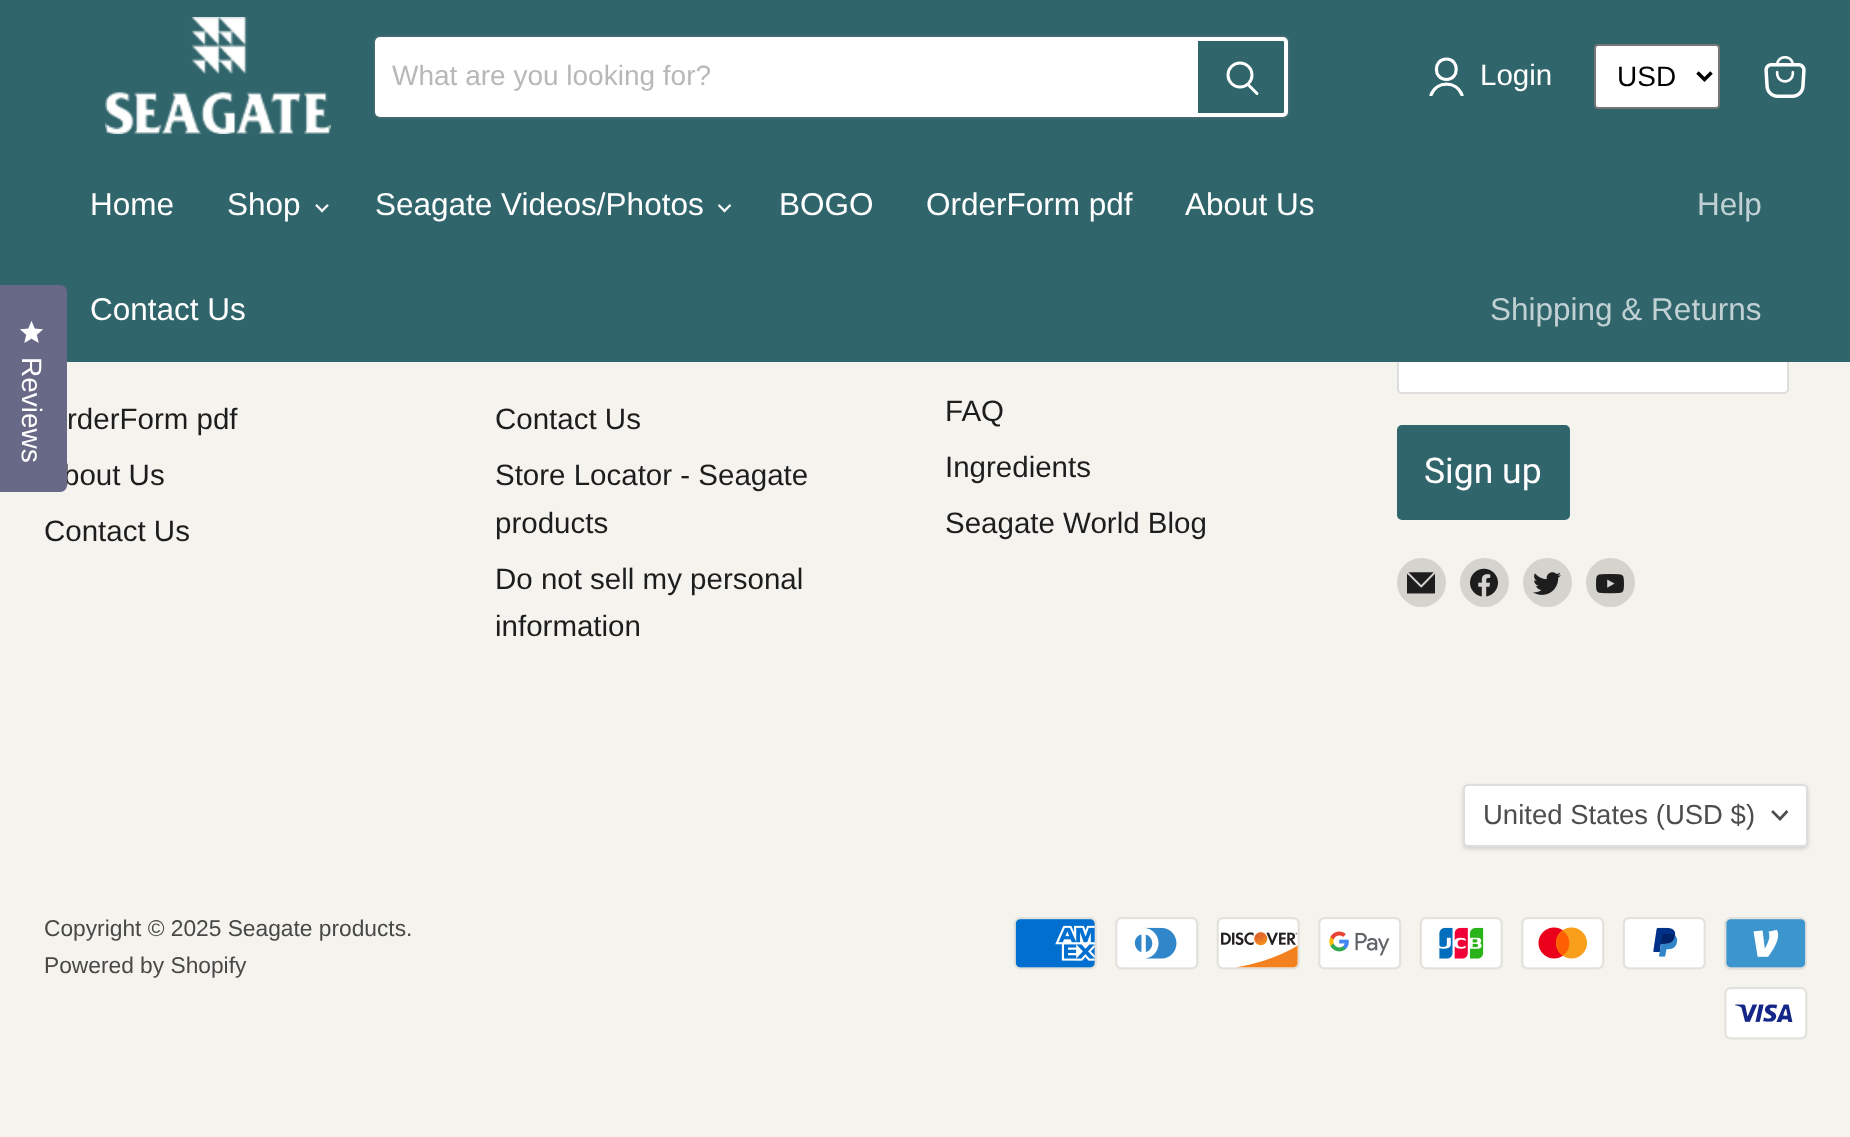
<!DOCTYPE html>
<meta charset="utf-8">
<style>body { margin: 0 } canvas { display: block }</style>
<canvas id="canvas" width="1850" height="1137"></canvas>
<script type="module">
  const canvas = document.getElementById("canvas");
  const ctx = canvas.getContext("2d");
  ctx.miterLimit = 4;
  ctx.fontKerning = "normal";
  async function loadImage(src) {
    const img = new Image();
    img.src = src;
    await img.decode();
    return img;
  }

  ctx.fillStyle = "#f5f3ed";
  ctx.fillRect(0, 0, 1850, 1137);
  ctx.fillStyle = "#ffffff";
  ctx.beginPath();
  ctx.roundRect(1398, 307, 390, 86, 4);
  ctx.fill();
  ctx.strokeStyle = "#dddddd";
  ctx.lineWidth = 2;
  ctx.stroke();
  ctx.fillStyle = "#30656b";
  ctx.fillRect(0, 0, 1850, 362);
  ctx.drawImage(await loadImage("img1.png"), 105, 17, 226, 117);
  ctx.beginPath();
  ctx.roundRect(374, 36, 915, 82, 6);
  ctx.strokeStyle = "rgba(128, 128, 128, 0.2)";
  ctx.stroke();
  ctx.fillStyle = "#ffffff";
  ctx.beginPath();
  ctx.roundRect(375, 37, 819, 80, [5, 0, 0, 5]);
  ctx.fill();
  ctx.font = "28px Liberation Sans";
  ctx.fillStyle = "#b8b8b8";
  ctx.fillText("What are you looking for?", 392, 85);
  ctx.fillStyle = "#30656b";
  ctx.beginPath();
  ctx.roundRect(1196, 39, 90, 76, [0, 3, 3, 0]);
  ctx.fill();
  ctx.strokeStyle = "#ffffff";
  ctx.lineWidth = 4;
  ctx.stroke();
  ctx.beginPath();
  ctx.moveTo(1257, 93.5);
  ctx.lineTo(1248.5, 85);
  ctx.lineWidth = 3;
  ctx.lineCap = "round";
  ctx.stroke();
  ctx.beginPath();
  ctx.arc(1240, 75, 12, 0, Math.PI * 2);
  ctx.stroke();
  ctx.beginPath();
  ctx.moveTo(1446.5, 79.5);
  ctx.bezierCurveTo(1459.5, 79.5, 1459.5, 59, 1446.5, 59);
  ctx.bezierCurveTo(1433, 59, 1433, 79.5, 1446.5, 79.5);
  ctx.closePath();
  ctx.lineWidth = 3.2;
  ctx.lineJoin = "round";
  ctx.stroke();
  ctx.save();
  ctx.beginPath();
  ctx.rect(1428, 56, 37, 40);
  ctx.clip();
  ctx.beginPath();
  ctx.moveTo(1462, 95);
  ctx.bezierCurveTo(1456.5, 80.5, 1436.5, 80.5, 1431, 95);
  ctx.stroke();
  ctx.restore();
  ctx.font = "29.5px Liberation Sans";
  ctx.fillStyle = "#ffffff";
  ctx.fillText("Login", 1480, 85);
  ctx.beginPath();
  ctx.roundRect(1595, 45, 124, 63, 3);
  ctx.fill();
  ctx.strokeStyle = "#767676";
  ctx.lineWidth = 2;
  ctx.lineJoin = "miter";
  ctx.stroke();
  ctx.beginPath();
  ctx.moveTo(1697.5, 72.5);
  ctx.lineTo(1704.5, 79.5);
  ctx.lineTo(1711.5, 72.5);
  ctx.strokeStyle = "#000000";
  ctx.lineWidth = 3.5;
  ctx.lineCap = "butt";
  ctx.stroke();
  ctx.font = "28px Liberation Sans";
  ctx.fillStyle = "#000000";
  ctx.fillText("USD", 1617, 86);
  ctx.drawImage(await loadImage("img2.png"), 1764, 56, 42, 42);
  ctx.font = "31.5px Liberation Sans";
  ctx.fillStyle = "#ffffff";
  ctx.fillText("Home", 90, 215);
  ctx.fillText("Shop", 227, 215);
  ctx.drawImage(await loadImage("img3.png"), 315, 204, 14, 9);
  ctx.fillText("Seagate Videos/Photos", 375, 215);
  ctx.drawImage(await loadImage("img4.png"), 718, 204, 14, 9);
  ctx.fillText("BOGO", 779, 215);
  ctx.fillText("OrderForm pdf", 926, 215);
  ctx.fillText("About Us", 1185, 215);
  ctx.fillText("Contact Us", 90, 320);
  ctx.fillStyle = "#c1d1d3";
  ctx.fillText("Help", 1697, 215);
  ctx.fillText("Shipping & Returns", 1490, 320);
  ctx.font = "29.5px Liberation Sans";
  ctx.fillStyle = "#1d1d1d";
  ctx.fillText("bout Us", 63, 485);
  ctx.fillStyle = "#676986";
  ctx.beginPath();
  ctx.moveTo(-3, 285);
  ctx.lineTo(60, 285);
  ctx.bezierCurveTo(64, 285, 67, 288, 67, 292);
  ctx.lineTo(67, 485);
  ctx.bezierCurveTo(67, 489, 64, 492, 60, 492);
  ctx.lineTo(-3, 492);
  ctx.closePath();
  ctx.fill();
  ctx.drawImage(await loadImage("img5.png"), 20, 321, 23, 22);
  ctx.font = "28px Liberation Sans";
  ctx.fillStyle = "#ffffff";
  ctx.save();
  ctx.translate(22, 357);
  ctx.rotate(90.1 * Math.PI / 180);
  ctx.fillText("Reviews", 0, 0);
  ctx.restore();
  ctx.font = "29.5px Liberation Sans";
  ctx.fillStyle = "#1d1d1d";
  ctx.fillText("rderForm pdf", 67, 429);
  ctx.fillText("Contact Us", 44, 541);
  ctx.fillText("Contact Us", 495, 429);
  ctx.fillText("Store Locator - Seagate", 495, 485);
  ctx.fillText("products", 495, 533);
  ctx.fillText("Do not sell my personal", 495, 589);
  ctx.fillText("information", 495, 636);
  ctx.fillText("FAQ", 945, 421);
  ctx.fillText("Ingredients", 945, 477);
  ctx.fillText("Seagate World Blog", 945, 533);
  ctx.fillStyle = "#30656b";
  ctx.beginPath();
  ctx.roundRect(1398, 426, 171, 93, 4);
  ctx.fill();
  ctx.strokeStyle = "#30656b";
  ctx.lineWidth = 2;
  ctx.stroke();
  ctx.font = "35.5px Roboto";
  ctx.fillStyle = "#ffffff";
  ctx.fillText("Sign up", 1424, 483);
  ctx.fillStyle = "#d5d3ce";
  ctx.beginPath();
  ctx.arc(1421.5, 582.5, 24.5, 0, Math.PI * 2);
  ctx.fill();
  ctx.drawImage(await loadImage("img6.png"), 1407, 572, 28, 22);
  ctx.beginPath();
  ctx.arc(1484.5, 582.5, 24.5, 0, Math.PI * 2);
  ctx.fill();
  ctx.drawImage(await loadImage("img7.png"), 1470, 568, 28, 29);
  ctx.beginPath();
  ctx.arc(1547.5, 582.5, 24.5, 0, Math.PI * 2);
  ctx.fill();
  ctx.drawImage(await loadImage("img8.png"), 1533, 572, 28, 23);
  ctx.beginPath();
  ctx.arc(1610.5, 582.5, 24.5, 0, Math.PI * 2);
  ctx.fill();
  ctx.drawImage(await loadImage("img9.png"), 1596, 574, 28, 20);
  ctx.fillStyle = "rgba(0, 0, 0, 0.15)";
  ctx.filter = "blur(2px)";
  ctx.beginPath();
  ctx.roundRect(1463, 786, 345, 63, 5);
  ctx.fill();
  ctx.filter = "none";
  ctx.fillStyle = "#ffffff";
  ctx.beginPath();
  ctx.roundRect(1464, 785, 343, 61, 4);
  ctx.fill();
  ctx.strokeStyle = "#dddddd";
  ctx.stroke();
  ctx.font = "27.5px Liberation Sans";
  ctx.fillStyle = "#4d4d4d";
  ctx.fillText("United States (USD $)", 1483, 824);
  ctx.beginPath();
  ctx.moveTo(1780, 819);
  ctx.lineTo(1786.5, 812);
  ctx.moveTo(1780, 819);
  ctx.lineTo(1773, 812);
  ctx.strokeStyle = "#4d4d4d";
  ctx.lineWidth = 2.7;
  ctx.lineCap = "square";
  ctx.stroke();
  ctx.font = "22.75px Liberation Sans";
  ctx.fillStyle = "#484847";
  ctx.fillText("Copyright © 2025 Seagate products.", 44, 936);
  ctx.fillText("Powered by Shopify", 44, 973);
  ctx.drawImage(await loadImage("img10.png"), 1013, 917, 84, 53);
  ctx.drawImage(await loadImage("img11.png"), 1115, 917, 84, 53);
  ctx.drawImage(await loadImage("img12.png"), 1216, 917, 84, 53);
  ctx.drawImage(await loadImage("img13.png"), 1318, 917, 84, 53);
  ctx.drawImage(await loadImage("img14.png"), 1419, 917, 84, 53);
  ctx.drawImage(await loadImage("img15.png"), 1521, 917, 84, 53);
  ctx.drawImage(await loadImage("img16.png"), 1622, 917, 84, 53);
  ctx.drawImage(await loadImage("img17.png"), 1724, 917, 83, 53);
  ctx.drawImage(await loadImage("img18.png"), 1724, 987, 84, 53);
</script>
